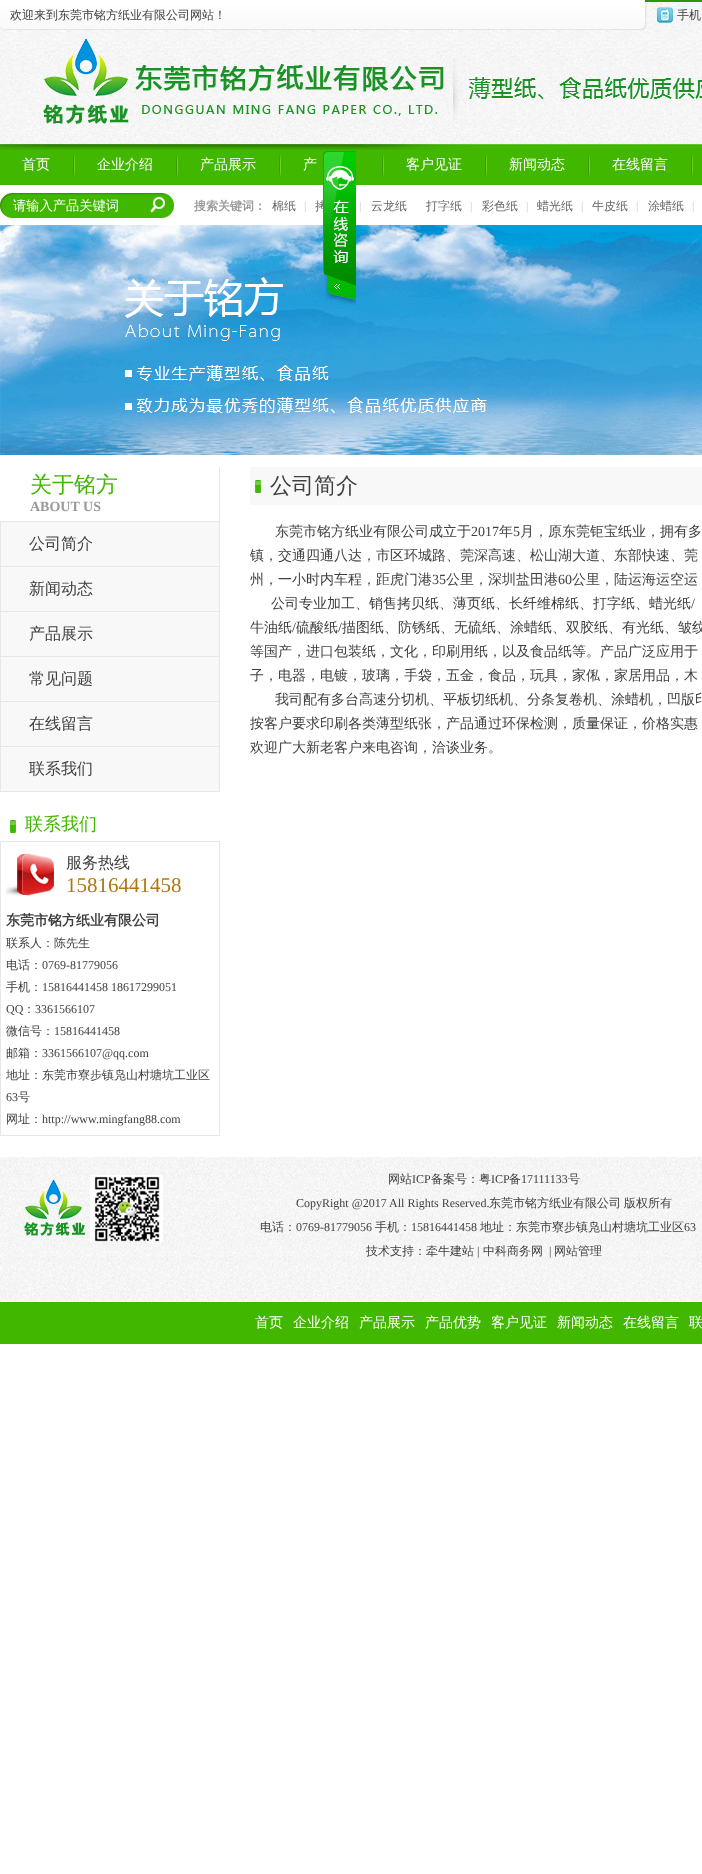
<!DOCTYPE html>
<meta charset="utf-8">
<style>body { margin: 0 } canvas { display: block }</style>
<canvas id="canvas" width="702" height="1874"></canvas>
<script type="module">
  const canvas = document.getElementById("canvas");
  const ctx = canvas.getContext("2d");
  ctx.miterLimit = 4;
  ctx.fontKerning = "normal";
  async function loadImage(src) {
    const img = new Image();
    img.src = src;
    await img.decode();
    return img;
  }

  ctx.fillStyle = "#ffffff";
  ctx.fillRect(0, 0, 702, 1874);
  ctx.drawImage(await loadImage("img1.png"), 0, 0, 702, 144);
  ctx.drawImage(await loadImage("img2.png"), 0, 0, 647, 30);
  ctx.font = "500 12px WenQuanYi Zen Hei";
  ctx.fillStyle = "#404040";
  ctx.fillText("欢迎来到东莞市铭方纸业有限公司网站！", 10, 19);
  ctx.drawImage(await loadImage("img3.png"), 657, 7, 16, 16);
  ctx.fillText("手机", 677, 19);
  ctx.drawImage(await loadImage("img4.png"), 43, 38, 659, 86);
  ctx.fillStyle = "#41b700";
  ctx.fillRect(0, 150, 702, 35);
  ctx.drawImage(await loadImage("img5.png"), 0, 144, 702, 6);
  ctx.drawImage(await loadImage("img6.png"), 73, 155, 2, 22);
  ctx.font = "500 14px WenQuanYi Zen Hei";
  ctx.fillStyle = "#ffffff";
  ctx.fillText("首页", 22, 169);
  ctx.drawImage(await loadImage("img6.png"), 176, 155, 2, 22);
  ctx.fillText("企业介绍", 97, 169);
  ctx.drawImage(await loadImage("img6.png"), 279, 155, 2, 22);
  ctx.fillText("产品展示", 200, 169);
  ctx.drawImage(await loadImage("img6.png"), 382, 155, 2, 22);
  ctx.fillText("产", 303, 169);
  ctx.drawImage(await loadImage("img6.png"), 485, 155, 2, 22);
  ctx.fillText("客户见证", 406, 169);
  ctx.drawImage(await loadImage("img6.png"), 588, 155, 2, 22);
  ctx.fillText("新闻动态", 509, 169);
  ctx.drawImage(await loadImage("img6.png"), 691, 155, 2, 22);
  ctx.fillText("在线留言", 612, 169);
  ctx.drawImage(await loadImage("img7.png"), 0, 193, 149, 25);
  ctx.font = "500 13.25px WenQuanYi Zen Hei";
  ctx.fillText("请输入产品关键词", 13, 210);
  ctx.drawImage(await loadImage("img8.png"), 149, 193, 25, 25);
  ctx.font = "bold 12px WenQuanYi Zen Hei";
  ctx.fillStyle = "#999999";
  ctx.fillText("搜索关键词：", 194, 210);
  ctx.font = "500 12px WenQuanYi Zen Hei";
  ctx.fillStyle = "#666666";
  ctx.fillText("棉纸", 272, 210);
  ctx.font = "12px Liberation Serif";
  ctx.fillStyle = "#cccccc";
  ctx.fillText("|", 304, 210);
  ctx.font = "500 12px WenQuanYi Zen Hei";
  ctx.fillStyle = "#666666";
  ctx.fillText("拷", 315, 210);
  ctx.font = "12px Liberation Serif";
  ctx.fillStyle = "#cccccc";
  ctx.fillText("|", 359, 210);
  ctx.font = "500 12px WenQuanYi Zen Hei";
  ctx.fillStyle = "#666666";
  ctx.fillText("云龙纸", 371, 210);
  ctx.fillText("打字纸", 426, 210);
  ctx.font = "12px Liberation Serif";
  ctx.fillStyle = "#cccccc";
  ctx.fillText("|", 470, 210);
  ctx.font = "500 12px WenQuanYi Zen Hei";
  ctx.fillStyle = "#666666";
  ctx.fillText("彩色纸", 482, 210);
  ctx.font = "12px Liberation Serif";
  ctx.fillStyle = "#cccccc";
  ctx.fillText("|", 526, 210);
  ctx.font = "500 12px WenQuanYi Zen Hei";
  ctx.fillStyle = "#666666";
  ctx.fillText("蜡光纸", 537, 210);
  ctx.font = "12px Liberation Serif";
  ctx.fillStyle = "#cccccc";
  ctx.fillText("|", 581, 210);
  ctx.font = "500 12px WenQuanYi Zen Hei";
  ctx.fillStyle = "#666666";
  ctx.fillText("牛皮纸", 592, 210);
  ctx.font = "12px Liberation Serif";
  ctx.fillStyle = "#cccccc";
  ctx.fillText("|", 636, 210);
  ctx.font = "500 12px WenQuanYi Zen Hei";
  ctx.fillStyle = "#666666";
  ctx.fillText("涂蜡纸", 648, 210);
  ctx.font = "12px Liberation Serif";
  ctx.fillStyle = "#cccccc";
  ctx.fillText("|", 692, 210);
  ctx.drawImage(await loadImage("img9.png"), 0, 225, 702, 230);
  ctx.fillStyle = "#e7e7e7";
  ctx.fillRect(219, 467, 1, 325);
  ctx.fillRect(0, 521, 220, 1);
  ctx.font = "500 22px WenQuanYi Zen Hei";
  ctx.fillStyle = "#41b700";
  ctx.fillText("关于铭方", 30, 492);
  ctx.font = "bold 14px Liberation Serif";
  ctx.fillStyle = "#999999";
  ctx.fillText("ABOUT US", 30, 511);
  ctx.fillStyle = "#e7e7e7";
  ctx.fillRect(0, 566, 220, 1);
  ctx.fillRect(0, 522, 1, 45);
  ctx.fillStyle = "#f8f8f8";
  ctx.fillRect(1, 522, 218, 44);
  ctx.font = "500 16px WenQuanYi Zen Hei";
  ctx.fillStyle = "#404040";
  ctx.fillText("公司简介", 29, 549);
  ctx.fillStyle = "#e7e7e7";
  ctx.fillRect(0, 611, 220, 1);
  ctx.fillRect(0, 567, 1, 45);
  ctx.fillStyle = "#f8f8f8";
  ctx.fillRect(1, 567, 218, 44);
  ctx.fillStyle = "#404040";
  ctx.fillText("新闻动态", 29, 594);
  ctx.fillStyle = "#e7e7e7";
  ctx.fillRect(0, 656, 220, 1);
  ctx.fillRect(0, 612, 1, 45);
  ctx.fillStyle = "#f8f8f8";
  ctx.fillRect(1, 612, 218, 44);
  ctx.fillStyle = "#404040";
  ctx.fillText("产品展示", 29, 639);
  ctx.fillStyle = "#e7e7e7";
  ctx.fillRect(0, 701, 220, 1);
  ctx.fillRect(0, 657, 1, 45);
  ctx.fillStyle = "#f8f8f8";
  ctx.fillRect(1, 657, 218, 44);
  ctx.fillStyle = "#404040";
  ctx.fillText("常见问题", 29, 684);
  ctx.fillStyle = "#e7e7e7";
  ctx.fillRect(0, 746, 220, 1);
  ctx.fillRect(0, 702, 1, 45);
  ctx.fillStyle = "#f8f8f8";
  ctx.fillRect(1, 702, 218, 44);
  ctx.fillStyle = "#404040";
  ctx.fillText("在线留言", 29, 729);
  ctx.fillStyle = "#e7e7e7";
  ctx.fillRect(0, 791, 220, 1);
  ctx.fillRect(0, 747, 1, 45);
  ctx.fillStyle = "#f8f8f8";
  ctx.fillRect(1, 747, 218, 44);
  ctx.fillStyle = "#404040";
  ctx.fillText("联系我们", 29, 774);
  ctx.drawImage(await loadImage("img10.png"), 10, 820, 6, 13);
  ctx.font = "500 18px WenQuanYi Zen Hei";
  ctx.fillStyle = "#41b700";
  ctx.fillText("联系我们", 25, 830);
  ctx.strokeStyle = "#e7e7e7";
  ctx.strokeRect(0.5, 841.5, 219, 294);
  ctx.drawImage(await loadImage("img11.png"), 6, 853, 49, 43);
  ctx.font = "500 16px WenQuanYi Zen Hei";
  ctx.fillStyle = "#404040";
  ctx.fillText("服务热线", 66, 868);
  ctx.font = "21px Liberation Serif";
  ctx.fillStyle = "#b07611";
  ctx.fillText("15816441458", 66, 892);
  ctx.font = "bold 14px WenQuanYi Zen Hei";
  ctx.fillStyle = "#404040";
  ctx.fillText("东莞市铭方纸业有限公司", 6, 925);
  ctx.font = "500 12px WenQuanYi Zen Hei";
  ctx.fillText("联系人：陈先生", 6, 947);
  ctx.fillText("电话：", 6, 969);
  ctx.font = "12px Liberation Serif";
  ctx.fillText("0769-81779056", 42, 969);
  ctx.font = "500 12px WenQuanYi Zen Hei";
  ctx.fillText("手机：", 6, 991);
  ctx.font = "12px Liberation Serif";
  ctx.fillText("15816441458 18617299051", 42, 991);
  ctx.fillText("QQ", 6, 1013);
  ctx.font = "500 12px WenQuanYi Zen Hei";
  ctx.fillText("：", 23, 1013);
  ctx.font = "12px Liberation Serif";
  ctx.fillText("3361566107", 35, 1013);
  ctx.font = "500 12px WenQuanYi Zen Hei";
  ctx.fillText("微信号：", 6, 1035);
  ctx.font = "12px Liberation Serif";
  ctx.fillText("15816441458", 54, 1035);
  ctx.font = "500 12px WenQuanYi Zen Hei";
  ctx.fillText("邮箱：", 6, 1057);
  ctx.font = "12px Liberation Serif";
  ctx.fillText("3361566107@qq.com", 42, 1057);
  ctx.font = "500 12px WenQuanYi Zen Hei";
  ctx.fillText("地址：东莞市寮步镇凫山村塘坑工业区", 6, 1079);
  ctx.font = "12px Liberation Serif";
  ctx.fillText("63", 6, 1101);
  ctx.font = "500 12px WenQuanYi Zen Hei";
  ctx.fillText("号", 18, 1101);
  ctx.fillText("网址：", 6, 1123);
  ctx.font = "12px Liberation Serif";
  ctx.fillText("http://www.mingfang88.com", 42, 1123);
  ctx.fillStyle = "#f8f8f8";
  ctx.fillRect(250, 467, 452, 38);
  ctx.drawImage(await loadImage("img10.png"), 255, 480, 6, 13);
  ctx.font = "500 22px WenQuanYi Zen Hei";
  ctx.fillStyle = "#404040";
  ctx.fillText("公司简介", 270, 493);
  ctx.font = "500 14px WenQuanYi Zen Hei";
  ctx.fillText("东莞市铭方纸业有限公司成立于", 275, 536);
  ctx.font = "14px Liberation Serif";
  ctx.fillText("2017", 471, 536);
  ctx.font = "500 14px WenQuanYi Zen Hei";
  ctx.fillText("年", 499, 536);
  ctx.font = "14px Liberation Serif";
  ctx.fillText("5", 513, 536);
  ctx.font = "500 14px WenQuanYi Zen Hei";
  ctx.fillText("月，原东莞钜宝纸业，拥有多", 520, 536);
  ctx.fillText("镇，交通四通八达，市区环城路、莞深高速、松山湖大道、东部快速、莞", 250, 560);
  ctx.fillText("州，一小时内车程，距虎门港", 250, 584);
  ctx.font = "14px Liberation Serif";
  ctx.fillText("35", 432, 584);
  ctx.font = "500 14px WenQuanYi Zen Hei";
  ctx.fillText("公里，深圳盐田港", 446, 584);
  ctx.font = "14px Liberation Serif";
  ctx.fillText("60", 558, 584);
  ctx.font = "500 14px WenQuanYi Zen Hei";
  ctx.fillText("公里，陆运海运空运", 572, 584);
  ctx.fillText("公司专业加工、销售拷贝纸、薄页纸、长纤维棉纸、打字纸、蜡光纸", 271, 608);
  ctx.font = "14px Liberation Serif";
  ctx.fillText("/", 691, 608);
  ctx.font = "500 14px WenQuanYi Zen Hei";
  ctx.fillText("牛油纸", 250, 632);
  ctx.font = "14px Liberation Serif";
  ctx.fillText("/", 292, 632);
  ctx.font = "500 14px WenQuanYi Zen Hei";
  ctx.fillText("硫酸纸", 296, 632);
  ctx.font = "14px Liberation Serif";
  ctx.fillText("/", 338, 632);
  ctx.font = "500 14px WenQuanYi Zen Hei";
  ctx.fillText("描图纸、防锈纸、无硫纸、涂蜡纸、双胶纸、有光纸、皱纹", 342, 632);
  ctx.fillText("等国产，进口包装纸，文化，印刷用纸，以及食品纸等。产品广泛应用于", 250, 656);
  ctx.fillText("子，电器，电镀，玻璃，手袋，五金，食品，玩具，家俬，家居用品，木", 250, 680);
  ctx.fillText("我司配有多台高速分切机、平板切纸机、分条复卷机、涂蜡机，凹版印", 275, 704);
  ctx.fillText("按客户要求印刷各类薄型纸张，产品通过环保检测，质量保证，价格实惠", 250, 728);
  ctx.fillText("欢迎广大新老客户来电咨询，洽谈业务。", 250, 752);
  ctx.drawImage(await loadImage("img12.png"), 0, 1157, 702, 145);
  ctx.drawImage(await loadImage("img13.png"), 24, 1175, 139, 67);
  ctx.font = "500 12px WenQuanYi Zen Hei";
  ctx.fillText("网站", 388, 1183);
  ctx.font = "12px Liberation Serif";
  ctx.fillText("ICP", 412, 1183);
  ctx.font = "500 12px WenQuanYi Zen Hei";
  ctx.fillText("备案号：粤", 431, 1183);
  ctx.font = "12px Liberation Serif";
  ctx.fillText("ICP", 491, 1183);
  ctx.font = "500 12px WenQuanYi Zen Hei";
  ctx.fillText("备", 509, 1183);
  ctx.font = "12px Liberation Serif";
  ctx.fillText("17111133", 521, 1183);
  ctx.font = "500 12px WenQuanYi Zen Hei";
  ctx.fillText("号", 568, 1183);
  ctx.font = "12px Liberation Serif";
  ctx.fillText("CopyRight @2017 All Rights Reserved.", 296, 1207);
  ctx.font = "500 12px WenQuanYi Zen Hei";
  ctx.fillText("东莞市铭方纸业有限公司", 489, 1207);
  ctx.fillText("版权所有", 624, 1207);
  ctx.fillText("电话：", 260, 1231);
  ctx.font = "12px Liberation Serif";
  ctx.fillText("0769-81779056", 296, 1231);
  ctx.font = "500 12px WenQuanYi Zen Hei";
  ctx.fillText("手机：", 375, 1231);
  ctx.font = "12px Liberation Serif";
  ctx.fillText("15816441458", 411, 1231);
  ctx.font = "500 12px WenQuanYi Zen Hei";
  ctx.fillText("地址：东莞市寮步镇凫山村塘坑工业区", 480, 1231);
  ctx.font = "12px Liberation Serif";
  ctx.fillText("63", 684, 1231);
  ctx.font = "500 12px WenQuanYi Zen Hei";
  ctx.fillText("技术支持：牵牛建站", 366, 1255);
  ctx.font = "12px Liberation Serif";
  ctx.fillText("|", 477, 1255);
  ctx.font = "500 12px WenQuanYi Zen Hei";
  ctx.fillText("中科商务网", 483, 1255);
  ctx.font = "12px Liberation Serif";
  ctx.fillText("|", 549, 1255);
  ctx.font = "500 12px WenQuanYi Zen Hei";
  ctx.fillText("网站管理", 554, 1255);
  ctx.fillStyle = "#41b700";
  ctx.fillRect(0, 1302, 702, 42);
  ctx.font = "500 14px WenQuanYi Zen Hei";
  ctx.fillStyle = "#ffffff";
  ctx.fillText("首页", 255, 1327);
  ctx.fillText("企业介绍", 293, 1327);
  ctx.fillText("产品展示", 359, 1327);
  ctx.fillText("产品优势", 425, 1327);
  ctx.fillText("客户见证", 491, 1327);
  ctx.fillText("新闻动态", 557, 1327);
  ctx.fillText("在线留言", 623, 1327);
  ctx.fillText("联", 689, 1327);
  ctx.drawImage(await loadImage("img14.png"), 323, 151, 33, 154);
</script>
